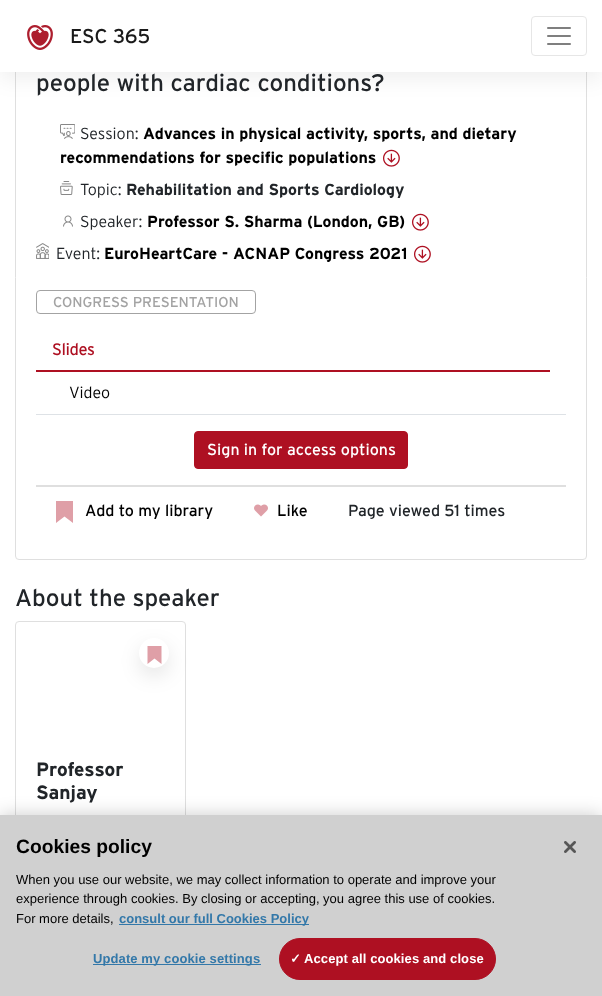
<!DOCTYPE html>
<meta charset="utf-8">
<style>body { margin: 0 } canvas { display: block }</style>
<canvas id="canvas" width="602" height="996"></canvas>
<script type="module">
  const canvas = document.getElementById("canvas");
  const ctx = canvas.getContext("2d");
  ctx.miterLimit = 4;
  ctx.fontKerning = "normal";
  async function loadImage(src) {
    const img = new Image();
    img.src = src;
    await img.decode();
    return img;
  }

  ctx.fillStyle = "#ffffff";
  ctx.fillRect(0, 0, 602, 996);
  ctx.beginPath();
  ctx.roundRect(15.5, -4.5, 571, 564, 3.5);
  ctx.strokeStyle = "#dfdfdf";
  ctx.stroke();
  ctx.fillStyle = "rgba(0, 0, 0, 0.06)";
  ctx.filter = "blur(10px)";
  ctx.beginPath();
  ctx.rect(0, 8, 602, 72);
  ctx.fill();
  ctx.filter = "none";
  ctx.fillStyle = "#ffffff";
  ctx.fillRect(0, 0, 602, 72);
  ctx.drawImage(await loadImage("img1.png"), 27, 25, 26, 25);
  ctx.font = "20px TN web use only";
  ctx.fillStyle = "#1a1a1a";
  ctx.fillText("ESC 365", 70, 43);
  ctx.beginPath();
  ctx.roundRect(531.5, 16.5, 55, 39, 3.5);
  ctx.strokeStyle = "#e6e6e6";
  ctx.stroke();
  ctx.drawImage(await loadImage("img2.png"), 547, 27, 24, 18);
  ctx.font = "24px TN web use only";
  ctx.fillStyle = "#212529";
  ctx.fillText("people with cardiac conditions?", 36, 91);
  ctx.drawImage(await loadImage("img3.png"), 60, 124, 15, 15);
  ctx.font = "bold 16px 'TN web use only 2'";
  ctx.fillStyle = "#000000";
  ctx.fillText("Advances in physical activity, sports, and dietary", 143, 139);
  ctx.fillText("recommendations for specific populations", 60, 163);
  ctx.drawImage(await loadImage("img4.png"), 383, 149, 17, 18);
  ctx.font = "300 16px TN web use only";
  ctx.fillStyle = "#212529";
  ctx.fillText("Session:", 80, 139);
  ctx.drawImage(await loadImage("img5.png"), 60, 181, 13, 14);
  ctx.fillText("Topic:", 80, 195);
  ctx.font = "bold 16px 'TN web use only 2'";
  ctx.fillText("Rehabilitation and Sports Cardiology", 126, 195);
  ctx.drawImage(await loadImage("img6.png"), 63, 215, 10, 12);
  ctx.font = "300 16px TN web use only";
  ctx.fillText("Speaker:", 80, 227);
  ctx.font = "bold 16px 'TN web use only 2'";
  ctx.fillStyle = "#000000";
  ctx.fillText("Professor S. Sharma (London, GB)", 147, 227);
  ctx.drawImage(await loadImage("img4.png"), 412, 213, 17, 18);
  ctx.drawImage(await loadImage("img7.png"), 36, 243, 13, 16);
  ctx.font = "300 16px TN web use only";
  ctx.fillStyle = "#212529";
  ctx.fillText("Event:", 56, 259);
  ctx.font = "bold 16px 'TN web use only 2'";
  ctx.fillStyle = "#000000";
  ctx.fillText("EuroHeartCare - ACNAP Congress 2021", 104, 259);
  ctx.drawImage(await loadImage("img4.png"), 414, 245, 17, 18);
  ctx.beginPath();
  ctx.roundRect(36.5, 290.5, 219, 23, 3.5);
  ctx.strokeStyle = "#a3a3a3";
  ctx.stroke();
  ctx.font = "14.4px TN web use only";
  ctx.fillStyle = "#a3a3a3";
  ctx.fillText("CONGRESS PRESENTATION", 53, 307);
  ctx.fillStyle = "#dee2e6";
  ctx.fillRect(36, 414, 530, 1);
  ctx.fillStyle = "#ae1022";
  ctx.fillRect(36, 370, 514, 2);
  ctx.font = "bold 16px TN web use only";
  ctx.fillText("Slides", 52, 355);
  ctx.font = "300 16px TN web use only";
  ctx.fillStyle = "#000000";
  ctx.fillText("Video", 69, 398);
  ctx.fillStyle = "#ae1022";
  ctx.beginPath();
  ctx.roundRect(194.5, 431.5, 213, 37, 3.5);
  ctx.fill();
  ctx.strokeStyle = "#ae1022";
  ctx.stroke();
  ctx.font = "16px TN web use only";
  ctx.fillStyle = "#ffffff";
  ctx.fillText("Sign in for access options", 207, 455);
  ctx.fillStyle = "#dfdfdf";
  ctx.fillRect(36, 485, 530, 2);
  ctx.fillStyle = "#df9fa7";
  ctx.beginPath();
  ctx.moveTo(56, 501);
  ctx.lineTo(56, 523);
  ctx.lineTo(64.5, 516.5);
  ctx.lineTo(73, 523);
  ctx.lineTo(73, 501);
  ctx.closePath();
  ctx.fill();
  ctx.fillStyle = "#000000";
  ctx.fillText("Add to my library", 85, 516);
  ctx.drawImage(await loadImage("img8.png"), 254, 504, 14, 13);
  ctx.fillText("Like", 277, 516);
  ctx.fillStyle = "#212529";
  ctx.fillText("Page viewed 51 times", 348, 516);
  ctx.font = "24px TN web use only";
  ctx.fillText("About the speaker", 15, 606);
  ctx.beginPath();
  ctx.roundRect(15.5, 621.5, 170, 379, 3.5);
  ctx.strokeStyle = "#dfdfdf";
  ctx.stroke();
  ctx.fillStyle = "rgba(0, 0, 0, 0.1)";
  ctx.filter = "blur(10px)";
  ctx.beginPath();
  ctx.roundRect(139, 646, 30, 30, 15);
  ctx.fill();
  ctx.filter = "none";
  ctx.fillStyle = "#ffffff";
  ctx.beginPath();
  ctx.arc(154, 653, 15, 0, Math.PI * 2);
  ctx.fill();
  ctx.fillStyle = "#df9fa7";
  ctx.beginPath();
  ctx.moveTo(147.5, 646);
  ctx.lineTo(147.5, 664);
  ctx.lineTo(154.5, 658.5);
  ctx.lineTo(161.5, 664);
  ctx.lineTo(161.5, 646);
  ctx.closePath();
  ctx.fill();
  ctx.font = "bold 19.25px 'TN web use only 2'";
  ctx.fillStyle = "#212529";
  ctx.fillText("Professor", 36, 776);
  ctx.fillText("Sanjay", 36, 799);
  ctx.fillStyle = "rgba(0, 0, 0, 0.2)";
  ctx.filter = "blur(9px)";
  ctx.beginPath();
  ctx.rect(0, 815, 602, 181);
  ctx.fill();
  ctx.filter = "none";
  ctx.fillStyle = "#d0d0d0";
  ctx.fillRect(0, 815, 602, 181);
  ctx.font = "bold 19.25px Liberation Sans";
  ctx.fillStyle = "#000000";
  ctx.fillText("Cookies policy", 16, 853);
  ctx.font = "13px Liberation Sans";
  ctx.fillText("When you use our website, we may collect information to operate and improve your", 16, 884);
  ctx.fillText("experience through cookies. By closing or accepting, you agree this use of cookies.", 16, 903);
  ctx.fillText("For more details,", 16, 923);
  ctx.fillStyle = "#3378a9";
  ctx.fillRect(119, 924, 190, 1);
  ctx.font = "bold 13px Liberation Sans";
  ctx.fillText("consult our full Cookies Policy", 119, 923);
  ctx.fillRect(93, 964, 168, 1);
  ctx.letterSpacing = "0.1px";
  ctx.fillText("Update my cookie settings", 93, 963);
  ctx.fillStyle = "#ae1022";
  ctx.beginPath();
  ctx.roundRect(279.5, 938.5, 216, 41, 20.5);
  ctx.fill();
  ctx.strokeStyle = "#ae1022";
  ctx.stroke();
  ctx.font = "bold 13px DejaVu Sans";
  ctx.fillStyle = "#ffffff";
  ctx.fillText("✓", 290, 963);
  ctx.font = "bold 13px Liberation Sans";
  ctx.fillText("Accept all cookies and close", 304, 963);
  ctx.drawImage(await loadImage("img9.png"), 564, 841, 12, 12);
</script>
